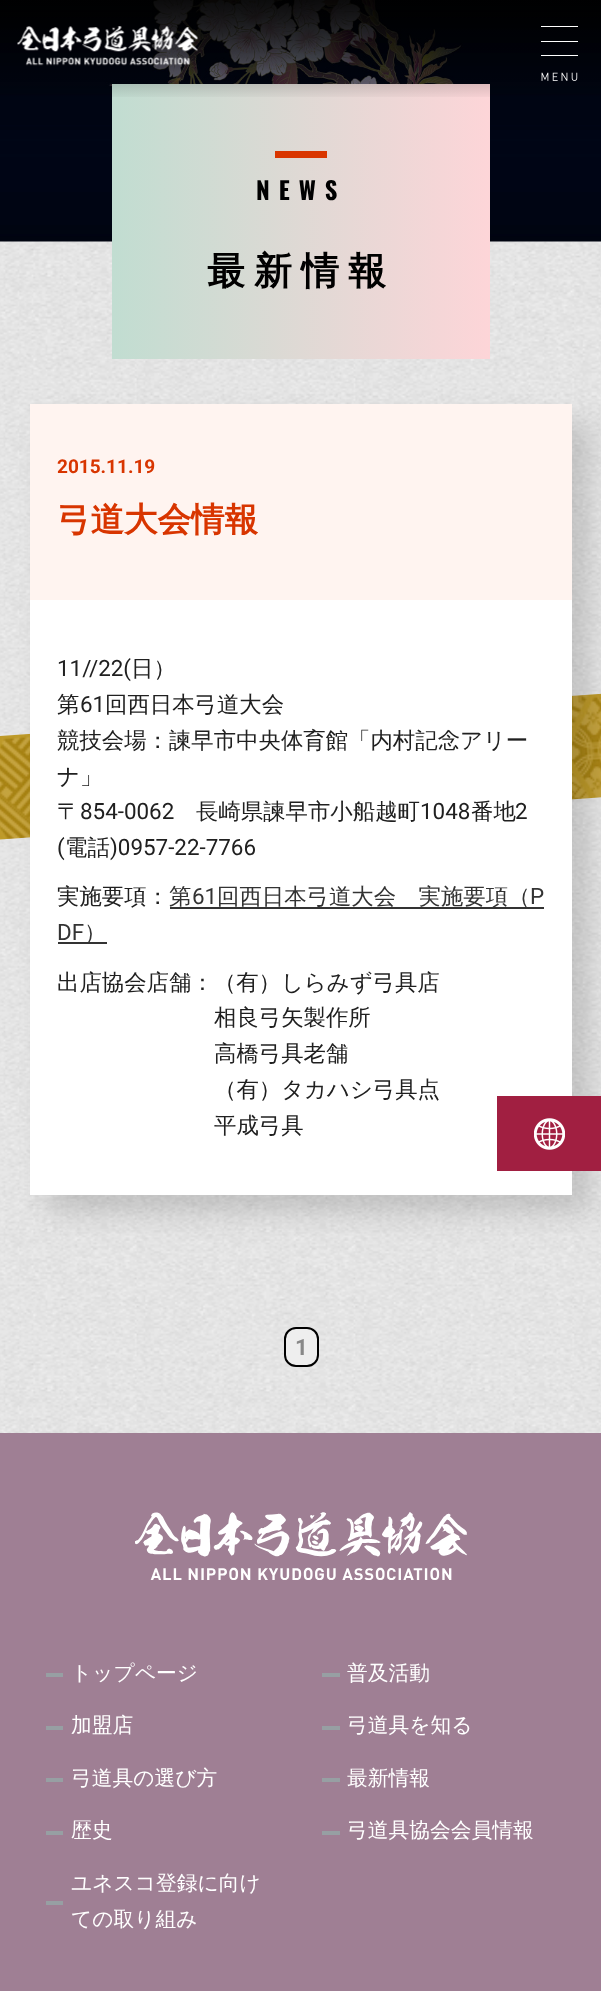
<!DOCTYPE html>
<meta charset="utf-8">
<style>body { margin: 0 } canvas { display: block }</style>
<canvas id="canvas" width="601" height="1991"></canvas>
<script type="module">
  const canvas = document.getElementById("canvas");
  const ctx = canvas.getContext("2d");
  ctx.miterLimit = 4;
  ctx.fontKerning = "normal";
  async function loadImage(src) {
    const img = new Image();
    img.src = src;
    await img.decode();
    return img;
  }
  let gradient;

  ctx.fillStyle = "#ffffff";
  ctx.fillRect(0, 0, 601, 1991);
  ctx.drawImage(await loadImage("img3.png"), 0, 241, 601, 1192);
  ctx.drawImage(await loadImage("img4.png"), 0, 0, 601, 242);
  gradient = ctx.createLinearGradient(490, 221, 112, 221);
  gradient.addColorStop(0, "#fdd5d8");
  gradient.addColorStop(1, "#c1ddd1");
  ctx.fillStyle = gradient;
  ctx.fillRect(112, 84, 378, 275);
  gradient = ctx.createLinearGradient(301, 0, 301, 100);
  gradient.addColorStop(0, "rgba(0, 0, 0, 0.8)");
  gradient.addColorStop(1, "rgba(0, 0, 0, 0)");
  ctx.fillStyle = gradient;
  ctx.fillRect(0, 0, 601, 97);
  ctx.drawImage(await loadImage("img1.png"), 17, 26, 181, 40);
  ctx.drawImage(await loadImage("img2.png"), 541, 26, 37, 55);
  ctx.fillStyle = "#d93600";
  ctx.fillRect(275, 151, 52, 7);
  ctx.letterSpacing = "9px";
  ctx.font = "bold 24.5px Oswald";
  ctx.fillStyle = "#000000";
  ctx.fillText("NEWS", 256, 200);
  ctx.font = "bold 38px WenQuanYi Zen Hei";
  ctx.fillText("最新情報", 207, 284);
  ctx.drawImage(await loadImage("img5.png"), 0, 693, 601, 147);
  ctx.fillStyle = "rgba(0, 0, 0, 0.15)";
  ctx.filter = "blur(14px)";
  ctx.beginPath();
  ctx.rect(47, 422, 543, 791);
  ctx.fill();
  ctx.filter = "none";
  ctx.fillStyle = "#ffffff";
  ctx.fillRect(30, 600, 542, 595);
  ctx.fillStyle = "#fff4f0";
  ctx.fillRect(30, 404, 542, 196);
  ctx.letterSpacing = "0px";
  ctx.font = "bold 19px Roboto";
  ctx.fillStyle = "#d83500";
  ctx.fillText("2015.11.19", 57, 473);
  ctx.font = "bold 33.5px WenQuanYi Zen Hei";
  ctx.fillText("弓道大会情報", 57, 531);
  ctx.font = "22.4px Roboto";
  ctx.fillStyle = "#202020";
  ctx.fillText("11//22(", 57, 676);
  ctx.font = "500 22.4px WenQuanYi Zen Hei";
  ctx.fillText("日）", 131, 676);
  ctx.fillText("第", 57, 712);
  ctx.font = "22.4px Roboto";
  ctx.fillText("61", 80, 712);
  ctx.font = "500 22.4px WenQuanYi Zen Hei";
  ctx.fillText("回西日本弓道大会", 105, 712);
  ctx.fillText("競技会場：諫早市中央体育館「内村記念アリー", 57, 748);
  ctx.fillText("ナ」", 57, 784);
  ctx.fillText("〒", 57, 819);
  ctx.font = "22.4px Roboto";
  ctx.fillText("854-0062", 80, 819);
  ctx.font = "500 22.4px WenQuanYi Zen Hei";
  ctx.fillText("長崎県諫早市小船越町", 196, 819);
  ctx.font = "22.4px Roboto";
  ctx.fillText("1048", 420, 819);
  ctx.font = "500 22.4px WenQuanYi Zen Hei";
  ctx.fillText("番地", 471, 819);
  ctx.font = "22.4px Roboto";
  ctx.fillText("2", 515, 819);
  ctx.fillText("(", 57, 855);
  ctx.font = "500 22.4px WenQuanYi Zen Hei";
  ctx.fillText("電話", 65, 855);
  ctx.font = "22.4px Roboto";
  ctx.fillText(")0957-22-7766", 110, 855);
  ctx.font = "500 22.4px WenQuanYi Zen Hei";
  ctx.fillText("実施要項：", 57, 904);
  ctx.fillStyle = "#333333";
  ctx.fillText("第", 169, 904);
  ctx.font = "22.4px Roboto";
  ctx.fillText("61", 192, 904);
  ctx.fillRect(170, 907, 374, 2);
  ctx.font = "500 22.4px WenQuanYi Zen Hei";
  ctx.fillText("回西日本弓道大会　実施要項（", 217, 904);
  ctx.font = "22.4px Roboto";
  ctx.fillText("P", 530, 904);
  ctx.fillText("DF", 57, 940);
  ctx.fillRect(58, 942, 49, 2);
  ctx.font = "500 22.4px WenQuanYi Zen Hei";
  ctx.fillText("）", 84, 940);
  ctx.fillStyle = "#202020";
  ctx.fillText("出店協会店舗：（有）しらみず弓具店", 57, 990);
  ctx.fillText("相良弓矢製作所", 214, 1025);
  ctx.fillText("高橋弓具老舗", 214, 1061);
  ctx.fillText("（有）タカハシ弓具点", 214, 1097);
  ctx.fillText("平成弓具", 214, 1133);
  ctx.fillStyle = "#eeeeee";
  ctx.beginPath();
  ctx.roundRect(285, 1328, 33, 38, 11);
  ctx.fill();
  ctx.strokeStyle = "#000000";
  ctx.lineWidth = 2;
  ctx.stroke();
  ctx.font = "bold 22.4px Roboto";
  ctx.fillStyle = "#888888";
  ctx.fillText("1", 295, 1355);
  ctx.fillStyle = "#a11f41";
  ctx.fillRect(497, 1096, 104, 75);
  ctx.drawImage(await loadImage("img6.png"), 534, 1118, 31, 32);
  ctx.fillStyle = "#9f7f94";
  ctx.fillRect(0, 1433, 601, 558);
  ctx.drawImage(await loadImage("img7.png"), 135, 1512, 332, 68);
  ctx.fillStyle = "#979fa3";
  ctx.fillRect(46, 1673, 17, 4);
  ctx.font = "500 20.75px WenQuanYi Zen Hei";
  ctx.fillStyle = "#ffffff";
  ctx.fillText("トップページ", 71, 1680);
  ctx.fillStyle = "#979fa3";
  ctx.fillRect(46, 1726, 17, 4);
  ctx.fillStyle = "#ffffff";
  ctx.fillText("加盟店", 71, 1732);
  ctx.fillStyle = "#979fa3";
  ctx.fillRect(46, 1778, 17, 4);
  ctx.fillStyle = "#ffffff";
  ctx.fillText("弓道具の選び方", 71, 1785);
  ctx.fillStyle = "#979fa3";
  ctx.fillRect(46, 1831, 17, 4);
  ctx.fillStyle = "#ffffff";
  ctx.fillText("歴史", 71, 1837);
  ctx.fillStyle = "#979fa3";
  ctx.fillRect(46, 1901, 17, 4);
  ctx.fillStyle = "#ffffff";
  ctx.fillText("ユネスコ登録に向け", 71, 1890);
  ctx.fillText("ての取り組み", 71, 1926);
  ctx.fillStyle = "#979fa3";
  ctx.fillRect(322, 1673, 18, 4);
  ctx.fillStyle = "#ffffff";
  ctx.fillText("普及活動", 347, 1680);
  ctx.fillStyle = "#979fa3";
  ctx.fillRect(322, 1726, 18, 4);
  ctx.fillStyle = "#ffffff";
  ctx.fillText("弓道具を知る", 347, 1732);
  ctx.fillStyle = "#979fa3";
  ctx.fillRect(322, 1778, 18, 4);
  ctx.fillStyle = "#ffffff";
  ctx.fillText("最新情報", 347, 1785);
  ctx.fillStyle = "#979fa3";
  ctx.fillRect(322, 1831, 18, 4);
  ctx.fillStyle = "#ffffff";
  ctx.fillText("弓道具協会会員情報", 347, 1837);
</script>
